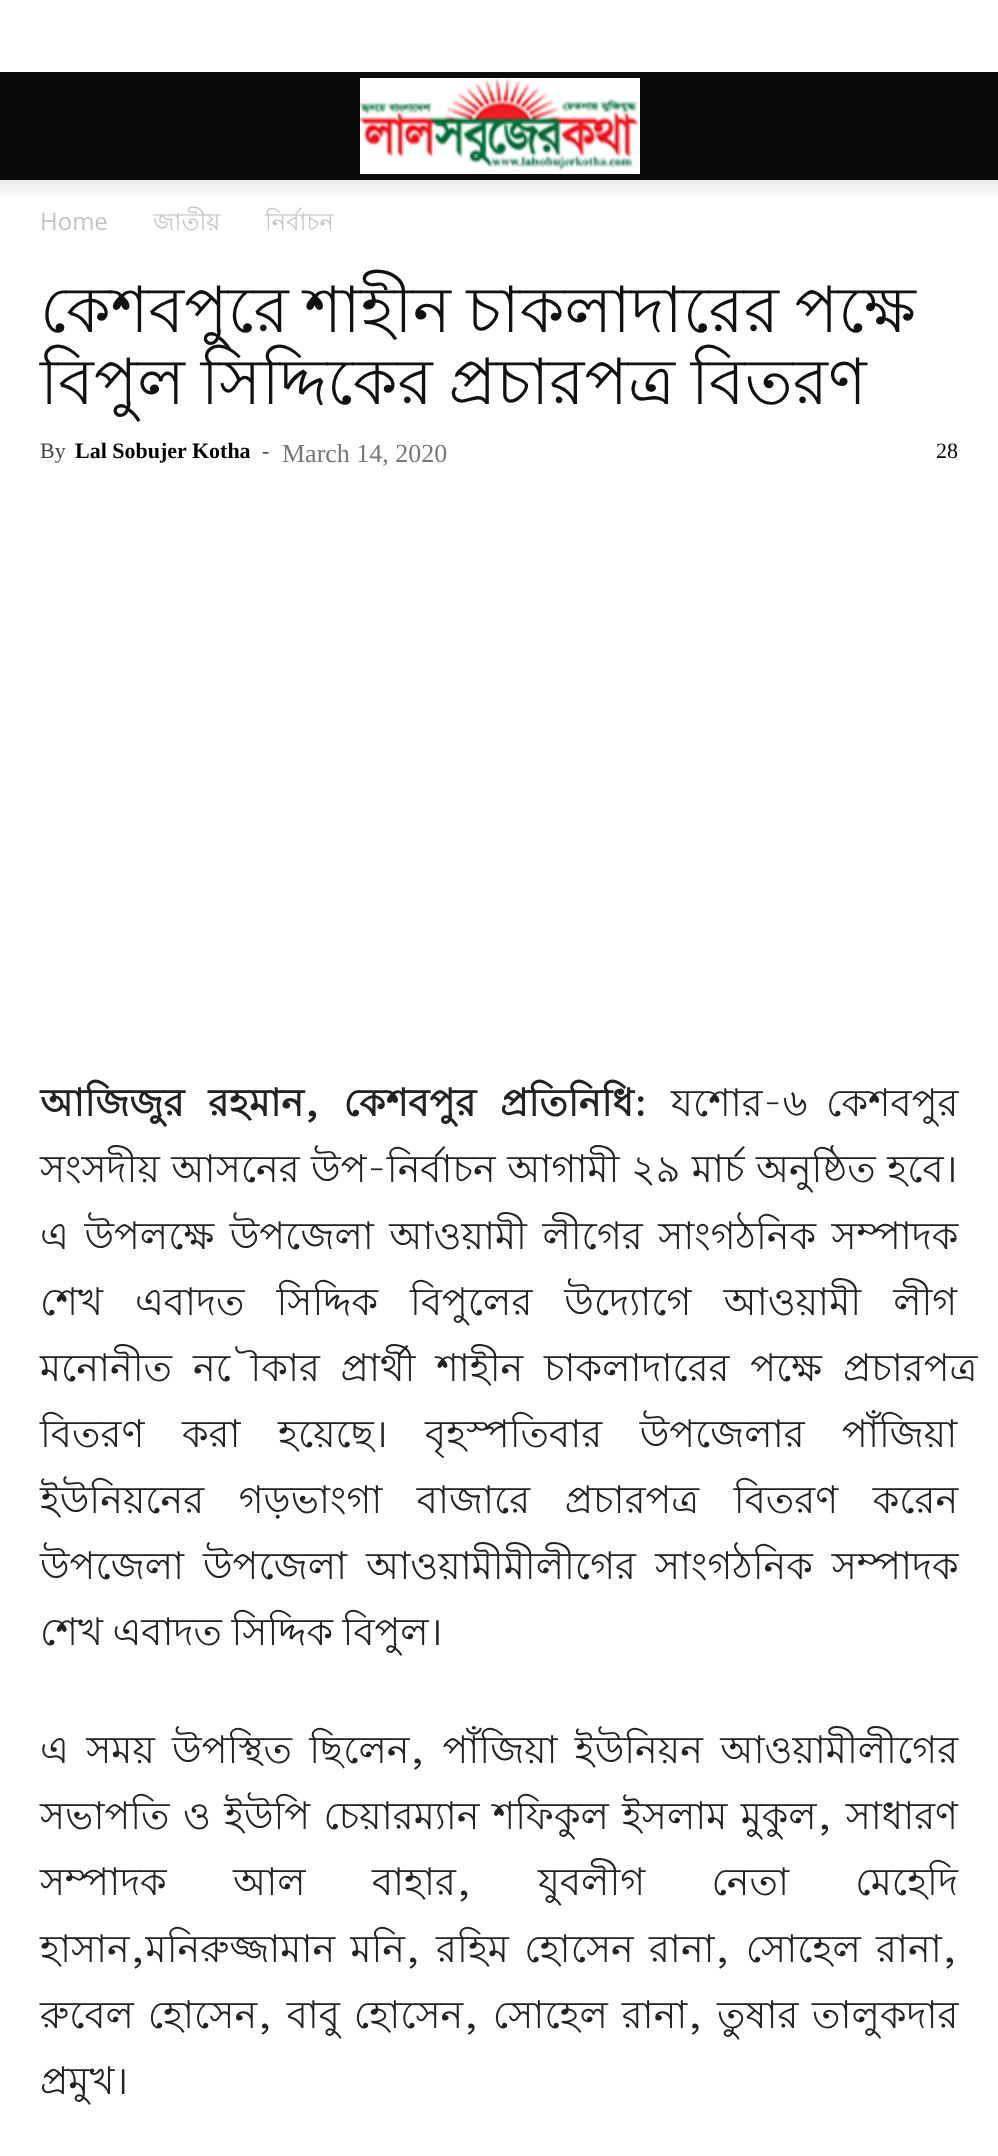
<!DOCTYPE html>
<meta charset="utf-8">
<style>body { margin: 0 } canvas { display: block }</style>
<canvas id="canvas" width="998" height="2156"></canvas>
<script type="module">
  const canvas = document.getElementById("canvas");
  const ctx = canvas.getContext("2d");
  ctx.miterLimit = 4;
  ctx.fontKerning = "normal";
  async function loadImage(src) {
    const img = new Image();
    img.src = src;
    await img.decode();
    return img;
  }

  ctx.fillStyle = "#ffffff";
  ctx.fillRect(0, 0, 998, 2156);
  ctx.fillStyle = "#0a0a0a";
  ctx.fillRect(0, 72, 998, 108);
  ctx.drawImage(await loadImage("img1.png"), 360, 78, 280, 96);
  ctx.drawImage(await loadImage("img2.png"), 0, 180, 998, 17);
  ctx.font = "24px Open Sans";
  ctx.fillStyle = "#c3c3c3";
  ctx.fillText("Home", 40, 230);
  ctx.font = "24px Lohit Bengali";
  ctx.fillText("জাতীয়", 153, 230);
  ctx.fillText("নির্বাচন", 265, 230);
  ctx.wordSpacing = "-2px";
  ctx.font = "64px Lohit Bengali";
  ctx.fillStyle = "#111111";
  ctx.fillText("কেশবপুরে শাহীন চাকলাদারের পক্ষে", 40, 332);
  ctx.fillText("বিপুল সিদ্দিকের প্রচারপত্র বিতরণ", 40, 404);
  ctx.wordSpacing = "0px";
  ctx.font = "22px Liberation Serif";
  ctx.fillStyle = "#444444";
  ctx.fillText("By", 40, 458);
  ctx.font = "bold 22px Liberation Serif";
  ctx.fillStyle = "#000000";
  ctx.fillText("Lal Sobujer Kotha", 75, 458);
  ctx.font = "22px Liberation Serif";
  ctx.fillStyle = "#444444";
  ctx.fillText("-", 262, 458);
  ctx.font = "26px Liberation Serif";
  ctx.fillStyle = "#767676";
  ctx.fillText("March 14, 2020", 282, 462);
  ctx.font = "22px Liberation Serif";
  ctx.fillStyle = "#000000";
  ctx.fillText("28", 936, 458);
  ctx.wordSpacing = "13.5px";
  ctx.font = "bold 38px Lohit Bengali";
  ctx.fillStyle = "#222222";
  ctx.fillText("আজিজুর রহমান, কেশবপুর প্রতিনিধি:", 40, 1116);
  ctx.wordSpacing = "8px";
  ctx.font = "38px Lohit Bengali";
  ctx.fillText("যশোর-৬ কেশবপুর", 671, 1116);
  ctx.wordSpacing = "1px";
  ctx.fillText("সংসদীয় আসনের উপ-নির্বাচন আগামী ২৯ মার্চ অনুষ্ঠিত হবে।", 40, 1182);
  ctx.wordSpacing = "5px";
  ctx.fillText("এ উপলক্ষে উপজেলা আওয়ামী লীগের সাংগঠনিক সম্পাদক", 40, 1249);
  ctx.wordSpacing = "21.5px";
  ctx.fillText("শেখ এবাদত সিদ্দিক বিপুলের উদ্যোগে আওয়ামী লীগ", 40, 1315);
  ctx.wordSpacing = "10.25px";
  ctx.fillText("মনোনীত নৌকার প্রার্থী শাহীন চাকলাদারের পক্ষে প্রচারপত্র", 40, 1381);
  ctx.wordSpacing = "27px";
  ctx.fillText("বিতরণ করা হয়েছে। বৃহস্পতিবার উপজেলার পাঁজিয়া", 40, 1447);
  ctx.wordSpacing = "24px";
  ctx.fillText("ইউনিয়নের গড়ভাংগা বাজারে প্রচারপত্র বিতরণ করেন", 40, 1513);
  ctx.wordSpacing = "8.5px";
  ctx.fillText("উপজেলা উপজেলা আওয়ামীমীলীগের সাংগঠনিক সম্পাদক", 40, 1579);
  ctx.wordSpacing = "-1px";
  ctx.fillText("শেখ এবাদত সিদ্দিক বিপুল।", 40, 1645);
  ctx.wordSpacing = "6.75px";
  ctx.fillText("এ সময় উপস্থিত ছিলেন, পাঁজিয়া ইউনিয়ন আওয়ামীলীগের", 40, 1763);
  ctx.wordSpacing = "2.75px";
  ctx.fillText("সভাপতি ও ইউপি চেয়ারম্যান শফিকুল ইসলাম মুকুল, সাধারণ", 40, 1829);
  ctx.wordSpacing = "55.75px";
  ctx.fillText("সম্পাদক আল বাহার, যুবলীগ নেতা মেহেদি", 40, 1895);
  ctx.wordSpacing = "4.75px";
  ctx.fillText("হাসান,মনিরুজ্জামান মনি, রহিম হোসেন রানা, সোহেল রানা,", 40, 1962);
  ctx.wordSpacing = "3.25px";
  ctx.fillText("রুবেল হোসেন, বাবু হোসেন, সোহেল রানা, তুষার তালুকদার", 40, 2028);
  ctx.wordSpacing = "0px";
  ctx.fillText("প্রমুখ।", 40, 2094);
</script>
